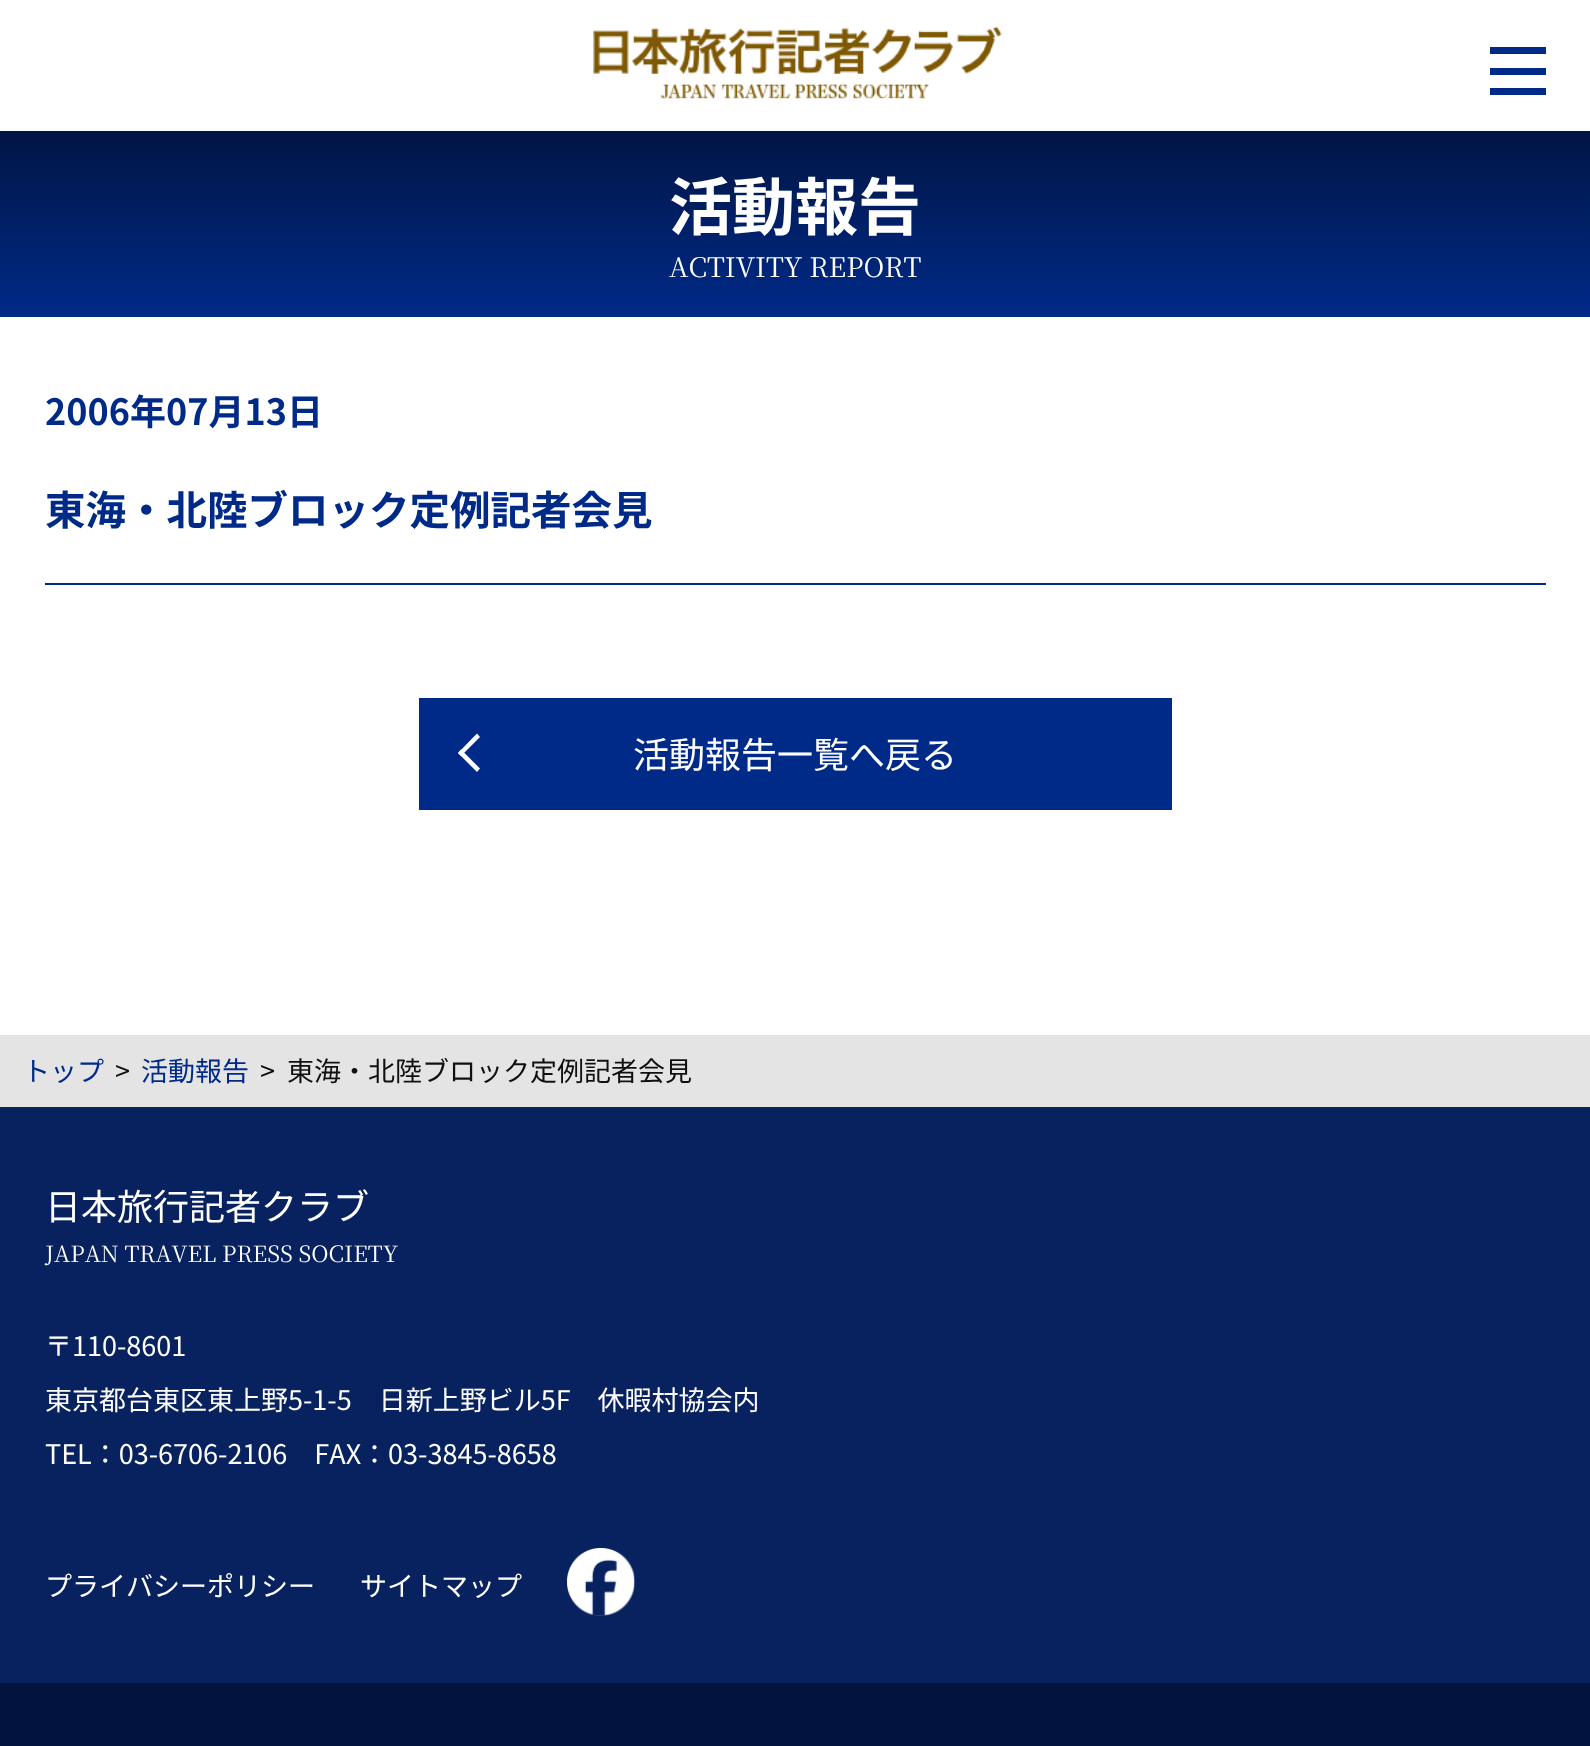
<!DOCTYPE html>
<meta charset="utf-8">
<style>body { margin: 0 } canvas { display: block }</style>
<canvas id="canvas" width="1590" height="1746"></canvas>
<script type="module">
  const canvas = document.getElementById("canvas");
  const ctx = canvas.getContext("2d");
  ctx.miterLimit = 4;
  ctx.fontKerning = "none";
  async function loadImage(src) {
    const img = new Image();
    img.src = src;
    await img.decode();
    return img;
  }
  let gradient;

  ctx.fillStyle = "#ffffff";
  ctx.fillRect(0, 0, 1590, 1746);
  ctx.drawImage(await loadImage("img1.png"), 593, 26, 409, 73);
  ctx.fillStyle = "#002a88";
  ctx.fillRect(1490, 47, 56, 7);
  ctx.fillRect(1490, 68, 56, 7);
  ctx.fillRect(1490, 88, 56, 7);
  gradient = ctx.createLinearGradient(795, 130, 795, 315);
  gradient.addColorStop(0, "#001544");
  gradient.addColorStop(1, "#002a88");
  ctx.fillStyle = gradient;
  ctx.fillRect(0, 131, 1590, 184);
  ctx.fillStyle = "#002a88";
  ctx.fillRect(0, 315, 1590, 2);
  ctx.font = "bold 63px Noto Sans JP";
  ctx.fillStyle = "#ffffff";
  ctx.fillText("活動報告", 669, 230);
  ctx.font = "27px Noto Serif JP";
  ctx.fillText("ACTIVITY REPORT", 669, 277);
  ctx.fillStyle = "#002a88";
  ctx.fillRect(45, 583, 1501, 2);
  ctx.font = "bold 36px Noto Sans JP";
  ctx.fillText("2006年07月13日", 45, 425);
  ctx.font = "bold 40.5px Noto Sans JP";
  ctx.fillText("東海・北陸ブロック定例記者会見", 45, 525);
  ctx.fillRect(419, 698, 753, 112);
  ctx.fillStyle = "#ffffff";
  ctx.beginPath();
  ctx.moveTo(461, 749.5);
  ctx.lineTo(480, 768.5);
  ctx.lineTo(477, 772);
  ctx.lineTo(458, 753);
  ctx.closePath();
  ctx.fill();
  ctx.beginPath();
  ctx.moveTo(477, 733.5);
  ctx.lineTo(480, 737);
  ctx.lineTo(461, 756);
  ctx.lineTo(458, 753);
  ctx.closePath();
  ctx.fill();
  ctx.font = "36px Noto Sans JP";
  ctx.fillText("活動報告一覧へ戻る", 633, 768);
  ctx.fillStyle = "#e4e4e4";
  ctx.fillRect(0, 1035, 1590, 72);
  ctx.font = "27px Noto Sans JP";
  ctx.fillStyle = "#002a88";
  ctx.fillText("トップ", 23, 1081);
  ctx.fillStyle = "#101010";
  ctx.fillText(">", 115, 1081);
  ctx.fillStyle = "#002a88";
  ctx.fillText("活動報告", 141, 1081);
  ctx.fillStyle = "#101010";
  ctx.fillText(">", 260, 1081);
  ctx.fillText("東海・北陸ブロック定例記者会見", 287, 1081);
  ctx.fillStyle = "#082260";
  ctx.fillRect(0, 1107, 1590, 576);
  ctx.font = "36px Noto Sans JP";
  ctx.fillStyle = "#ffffff";
  ctx.fillText("日本旅行記者クラブ", 45, 1220);
  ctx.font = "22.5px Noto Serif JP";
  ctx.fillText("JAPAN TRAVEL", 45, 1262);
  ctx.fillText("PRESS SOCIETY", 222, 1262);
  ctx.font = "27px Noto Sans JP";
  ctx.fillText("〒110-8601", 45, 1356);
  ctx.fillText("東京都台東区東上野5-1-5　日新上野ビル5F　休暇村協会内", 45, 1410);
  ctx.fillText("TEL：03-6706-2106　FAX：03-3845-8658", 45, 1464);
  ctx.fillText("プライバシーポリシー", 45, 1596);
  ctx.fillText("サイトマップ", 360, 1596);
  ctx.drawImage(await loadImage("img2.png"), 567, 1548, 68, 68);
  ctx.fillStyle = "#031340";
  ctx.fillRect(0, 1683, 1590, 63);
</script>
